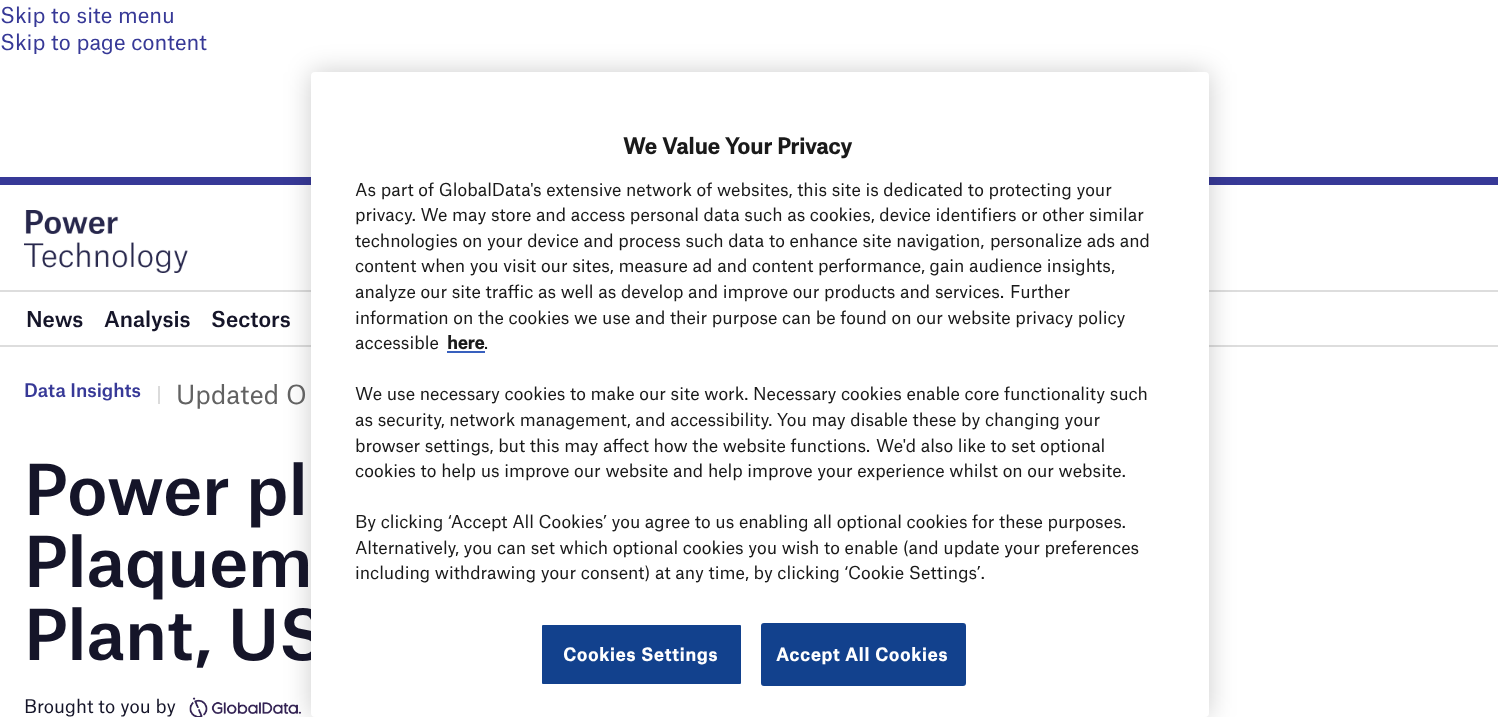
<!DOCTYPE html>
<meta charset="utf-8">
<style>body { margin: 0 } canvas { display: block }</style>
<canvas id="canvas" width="1498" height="717"></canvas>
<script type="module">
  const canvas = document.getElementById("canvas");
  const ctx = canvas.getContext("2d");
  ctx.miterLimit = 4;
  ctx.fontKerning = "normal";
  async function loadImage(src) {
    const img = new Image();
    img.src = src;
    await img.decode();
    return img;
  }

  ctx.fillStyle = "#ffffff";
  ctx.fillRect(0, 0, 1498, 717);
  ctx.font = "21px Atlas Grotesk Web";
  ctx.fillStyle = "#373997";
  ctx.fillText("Skip to site menu", 0, 23);
  ctx.fillText("Skip to page content", 0, 50);
  ctx.fillRect(0, 177, 1498, 8);
  ctx.drawImage(await loadImage("img1.png"), 24, 210, 164, 63);
  ctx.fillStyle = "#dddddd";
  ctx.fillRect(0, 290, 1498, 2);
  ctx.fillRect(0, 345, 1498, 2);
  ctx.font = "500 21px Atlas Grotesk Web";
  ctx.fillStyle = "#151529";
  ctx.fillText("News", 26, 327);
  ctx.fillText("Analysis", 104, 327);
  ctx.fillText("Sectors", 211, 327);
  ctx.drawImage(await loadImage("img2.png"), 189, 697, 112, 20);
  ctx.fillStyle = "rgba(0, 0, 0, 0.2)";
  ctx.filter = "blur(13.5px)";
  ctx.beginPath();
  ctx.roundRect(311, 72, 898, 645, 4);
  ctx.fill();
  ctx.filter = "none";
  ctx.font = "500 67px Atlas Grotesk Web";
  ctx.fillStyle = "#151529";
  ctx.fillText("Plant, US", 24, 660);
  ctx.fillStyle = "#ffffff";
  ctx.beginPath();
  ctx.roundRect(311, 72, 898, 645, 4);
  ctx.fill();
  ctx.font = "bold 21px Atlas Grotesk Web";
  ctx.fillStyle = "#1a1a1a";
  ctx.fillText("We Value Your Privacy", 623, 154);
  ctx.font = "17.05px Atlas Grotesk Web";
  ctx.fillText("As part of GlobalData's extensive network of websites, this site is dedicated to protecting your", 355, 196);
  ctx.fillText("privacy. We may store and access personal data such as cookies, device identifiers or other similar", 355, 221);
  ctx.fillText("technologies on your device and process such data to enhance site navigation,", 355, 247);
  ctx.fillText("personalize ads and", 990, 247);
  ctx.fillText("content when you visit our sites, measure ad and content performance, gain audience insights,", 355, 272);
  ctx.fillText("analyze our site traffic as well as develop and improve our products and services.", 355, 298);
  ctx.fillText("Further", 1010, 298);
  ctx.fillText("information on the cookies we use and their purpose can be found on our website privacy policy", 355, 324);
  ctx.fillText("accessible", 355, 349);
  ctx.font = "bold 17.05px Atlas Grotesk Web";
  ctx.fillText("here", 447, 349);
  ctx.fillStyle = "#3860be";
  ctx.fillRect(447, 351, 38, 2);
  ctx.font = "17.05px Atlas Grotesk Web";
  ctx.fillStyle = "#1a1a1a";
  ctx.fillText(".", 484, 349);
  ctx.fillText("We use necessary cookies to make our site work. Necessary cookies enable core functionality such", 355, 400);
  ctx.fillText("as security, network management, and accessibility. You may disable these by changing your", 355, 426);
  ctx.fillText("browser settings, but this may affect how the website functions.", 355, 452);
  ctx.fillText("We'd also like to set optional", 876, 452);
  ctx.fillText("cookies to help us improve our website and help improve your experience whilst on our website.", 355, 477);
  ctx.fillText("By clicking ‘Accept All Cookies’ you agree to us enabling all optional cookies for these purposes.", 355, 528);
  ctx.fillText("Alternatively, you can set which optional cookies you wish to enable (and update your preferences", 355, 554);
  ctx.fillText("including withdrawing your consent) at any time, by clicking ‘Cookie Settings’.", 355, 579);
  ctx.fillStyle = "#12418d";
  ctx.beginPath();
  ctx.roundRect(541, 624, 201, 61, 2);
  ctx.fill();
  ctx.strokeStyle = "#ffffff";
  ctx.lineWidth = 2;
  ctx.stroke();
  ctx.letterSpacing = "0.8px";
  ctx.font = "bold 17.05px Atlas Grotesk Web";
  ctx.fillStyle = "#ffffff";
  ctx.fillText("Cookies Settings", 563, 661);
  ctx.fillStyle = "#12418d";
  ctx.beginPath();
  ctx.roundRect(762, 624, 203, 61, 2);
  ctx.fill();
  ctx.strokeStyle = "#12418d";
  ctx.stroke();
  ctx.fillStyle = "#ffffff";
  ctx.fillText("Accept All Cookies", 776, 661);
  ctx.letterSpacing = "0px";
  ctx.font = "500 18px Atlas Grotesk Web";
  ctx.fillStyle = "#373997";
  ctx.fillText("Data Insights", 24, 397);
  ctx.fillStyle = "#dbdbdb";
  ctx.fillRect(158, 386, 2, 18);
  ctx.font = "25.25px Atlas Grotesk Web";
  ctx.fillStyle = "#626262";
  ctx.fillText("Updated O", 176, 404);
  ctx.font = "500 67px Atlas Grotesk Web";
  ctx.fillStyle = "#151529";
  ctx.fillText("Power pl", 24, 515);
  ctx.fillText("Plaquem", 24, 587);
  ctx.font = "18px Atlas Grotesk Web";
  ctx.fillText("Brought to you by", 24, 713);
</script>
